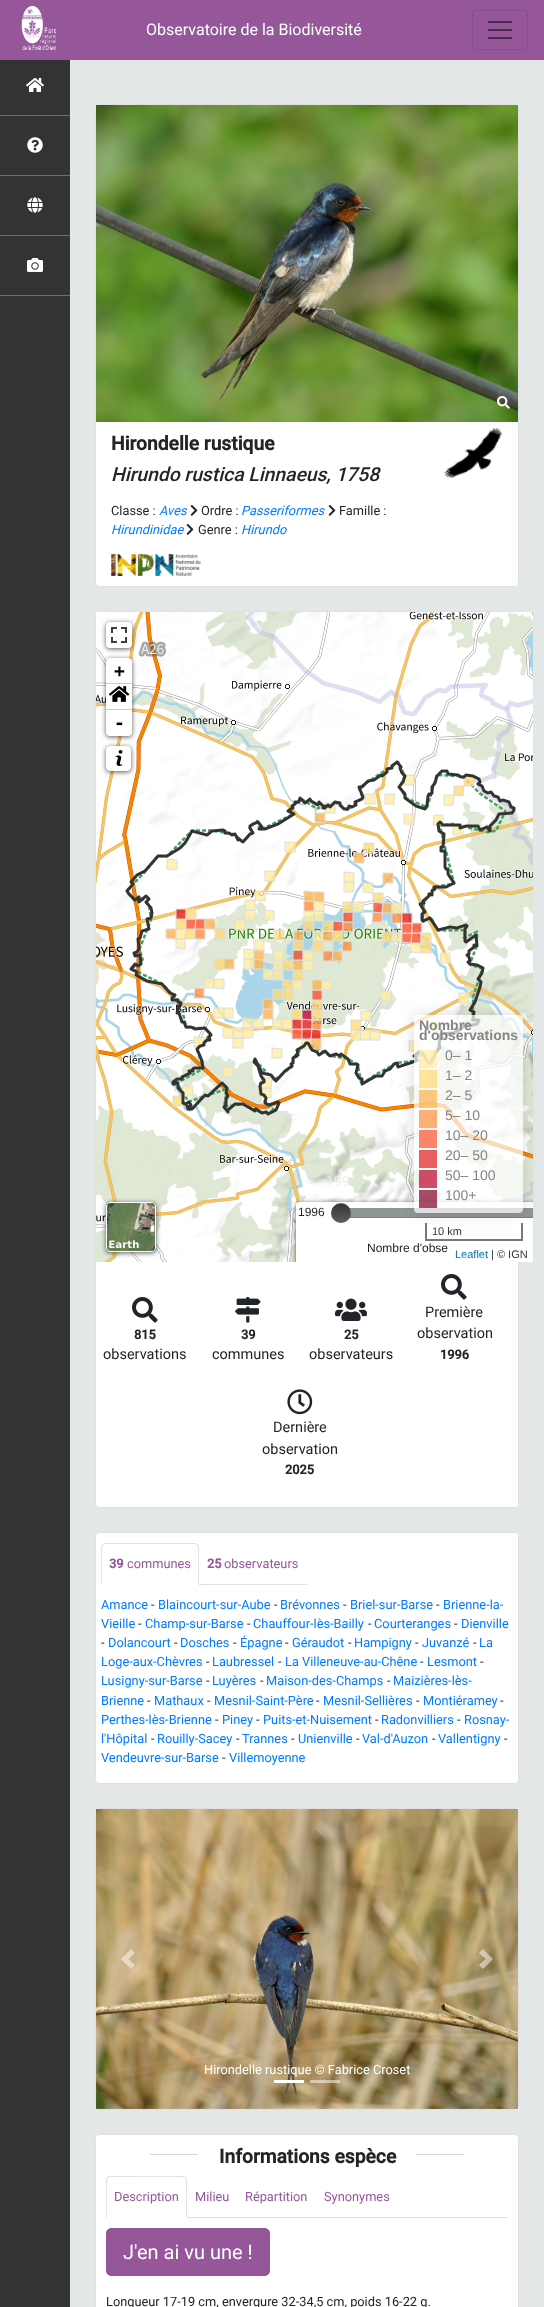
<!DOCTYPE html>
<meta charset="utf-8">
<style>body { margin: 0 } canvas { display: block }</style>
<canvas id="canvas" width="544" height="2307"></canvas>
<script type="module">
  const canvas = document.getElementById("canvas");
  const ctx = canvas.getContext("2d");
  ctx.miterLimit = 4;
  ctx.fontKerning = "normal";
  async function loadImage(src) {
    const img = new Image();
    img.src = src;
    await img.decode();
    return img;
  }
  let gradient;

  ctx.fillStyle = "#e3e7e8";
  ctx.fillRect(0, 0, 544, 2307);
  ctx.fillStyle = "#95579a";
  ctx.fillRect(0, 0, 544, 60);
  ctx.drawImage(await loadImage("img1.png"), 21, 5, 36, 45);
  ctx.font = "16px Roboto";
  ctx.fillStyle = "#ffffff";
  ctx.fillText("Observatoire de la Biodiversité", 146, 35);
  ctx.beginPath();
  ctx.roundRect(472.5, 10.5, 55, 39, 3.5);
  ctx.strokeStyle = "#864e8b";
  ctx.stroke();
  ctx.drawImage(await loadImage("img2.png"), 488, 21, 24, 18);
  ctx.fillStyle = "#333333";
  ctx.fillRect(0, 60, 70, 2247);
  ctx.fillStyle = "#95579a";
  ctx.fillRect(0, 115, 70, 1);
  ctx.drawImage(await loadImage("img3.png"), 26, 78, 18, 14);
  ctx.fillRect(0, 175, 70, 1);
  ctx.drawImage(await loadImage("img4.png"), 27, 137, 16, 16);
  ctx.fillRect(0, 235, 70, 1);
  ctx.drawImage(await loadImage("img5.png"), 27, 197, 16, 16);
  ctx.fillRect(0, 295, 70, 1);
  ctx.drawImage(await loadImage("img6.png"), 27, 258, 16, 14);
  ctx.fillStyle = "#ffffff";
  ctx.beginPath();
  ctx.roundRect(95, 104, 424, 483, 4);
  ctx.fill();
  ctx.beginPath();
  ctx.roundRect(95.5, 104.5, 423, 482, 3.5);
  ctx.strokeStyle = "rgba(0, 0, 0, 0.12)";
  ctx.stroke();
  ctx.drawImage(await loadImage("img7.png"), 96, 105, 422, 317);
  ctx.drawImage(await loadImage("img8.png"), 497, 396, 13, 13);
  ctx.font = "bold 19.25px Roboto";
  ctx.fillStyle = "#212529";
  ctx.fillText("Hirondelle rustique", 111, 450);
  ctx.font = "italic 500 19.25px Roboto";
  ctx.fillText("Hirundo rustica Linnaeus, 1758", 111, 481);
  ctx.font = "12.8px Roboto";
  ctx.fillText("Classe :", 111, 515);
  ctx.font = "italic 12.8px Roboto";
  ctx.fillStyle = "#007bff";
  ctx.fillText("Aves", 159, 515);
  ctx.drawImage(await loadImage("img9.png"), 190, 505, 8, 11);
  ctx.font = "12.8px Roboto";
  ctx.fillStyle = "#212529";
  ctx.fillText("Ordre :", 201, 515);
  ctx.font = "italic 12.8px Roboto";
  ctx.fillStyle = "#007bff";
  ctx.fillText("Passeriformes", 241, 515);
  ctx.drawImage(await loadImage("img9.png"), 328, 505, 8, 11);
  ctx.font = "12.8px Roboto";
  ctx.fillStyle = "#212529";
  ctx.fillText("Famille :", 339, 515);
  ctx.font = "italic 12.8px Roboto";
  ctx.fillStyle = "#007bff";
  ctx.fillText("Hirundinidae", 111, 534);
  ctx.drawImage(await loadImage("img9.png"), 186, 524, 8, 11);
  ctx.font = "12.8px Roboto";
  ctx.fillStyle = "#212529";
  ctx.fillText("Genre :", 198, 534);
  ctx.font = "italic 12.8px Roboto";
  ctx.fillStyle = "#007bff";
  ctx.fillText("Hirundo", 241, 534);
  ctx.drawImage(await loadImage("img10.png"), 111, 554, 90, 22);
  ctx.drawImage(await loadImage("img11.png"), 444, 428, 58, 50);
  ctx.fillStyle = "#ffffff";
  ctx.beginPath();
  ctx.roundRect(95, 611, 424, 897, 4);
  ctx.fill();
  ctx.beginPath();
  ctx.roundRect(95.5, 611.5, 423, 896, 3.5);
  ctx.stroke();
  ctx.drawImage(await loadImage("img12.png"), 96, 612, 83, 176);
  ctx.drawImage(await loadImage("img13.png"), 179, 612, 256, 176);
  ctx.drawImage(await loadImage("img14.png"), 435, 612, 98, 176);
  ctx.drawImage(await loadImage("img15.png"), 96, 788, 83, 256);
  ctx.drawImage(await loadImage("img16.png"), 179, 788, 256, 256);
  ctx.drawImage(await loadImage("img17.png"), 435, 788, 98, 256);
  ctx.drawImage(await loadImage("img18.png"), 96, 1044, 83, 218);
  ctx.drawImage(await loadImage("img19.png"), 179, 1044, 256, 218);
  ctx.drawImage(await loadImage("img20.png"), 435, 1044, 98, 158);
  ctx.drawImage(await loadImage("img21.png"), 125, 760, 391, 356);
  ctx.fillStyle = "rgba(0, 0, 0, 0.65)";
  ctx.filter = "blur(2.5px)";
  ctx.beginPath();
  ctx.roundRect(106, 623, 26, 26, 4);
  ctx.fill();
  ctx.filter = "none";
  ctx.fillStyle = "#ffffff";
  ctx.beginPath();
  ctx.roundRect(106, 622, 26, 26, 4);
  ctx.fill();
  ctx.drawImage(await loadImage("img22.png"), 111, 627, 16, 16);
  ctx.fillStyle = "rgba(0, 0, 0, 0.65)";
  ctx.filter = "blur(2.5px)";
  ctx.beginPath();
  ctx.roundRect(106, 659, 26, 78, 4);
  ctx.fill();
  ctx.filter = "none";
  ctx.fillStyle = "#ffffff";
  ctx.beginPath();
  ctx.roundRect(106, 658, 26, 26, [4, 4, 0, 0]);
  ctx.fill();
  ctx.fillStyle = "#cccccc";
  ctx.fillRect(106, 683, 26, 1);
  ctx.font = "bold 18px DejaVu Sans Mono";
  ctx.fillStyle = "#000000";
  ctx.fillText("+", 114, 677);
  ctx.fillStyle = "#ffffff";
  ctx.fillRect(106, 684, 26, 25);
  ctx.fillStyle = "#cccccc";
  ctx.fillRect(106, 709, 26, 1);
  ctx.drawImage(await loadImage("img23.png"), 109, 686, 21, 16);
  ctx.fillStyle = "#ffffff";
  ctx.beginPath();
  ctx.roundRect(106, 710, 26, 26, [0, 0, 4, 4]);
  ctx.fill();
  ctx.fillStyle = "#000000";
  ctx.fillText("-", 114, 729);
  ctx.fillStyle = "rgba(0, 0, 0, 0.65)";
  ctx.filter = "blur(2.5px)";
  ctx.beginPath();
  ctx.roundRect(106, 747, 25, 25, 4);
  ctx.fill();
  ctx.filter = "none";
  ctx.fillStyle = "#ffffff";
  ctx.beginPath();
  ctx.roundRect(106.5, 746.5, 24, 24, 3.5);
  ctx.fill();
  ctx.strokeStyle = "#ffffff";
  ctx.stroke();
  ctx.drawImage(await loadImage("img24.png"), 115, 750, 8, 16);
  ctx.fillStyle = "rgba(0, 0, 0, 0.65)";
  ctx.filter = "blur(2.5px)";
  ctx.beginPath();
  ctx.roundRect(106, 1203, 50, 50, 4);
  ctx.fill();
  ctx.filter = "none";
  ctx.drawImage(await loadImage("img25.png"), 106, 1202, 50, 50);
  ctx.beginPath();
  ctx.roundRect(106.5, 1202.5, 49, 49, 3.5);
  ctx.stroke();
  ctx.drawImage(await loadImage("img26.png"), 441, 1274, 26, 26);
  ctx.save();
  ctx.beginPath();
  ctx.rect(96, 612, 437, 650);
  ctx.clip();
  ctx.filter = "blur(2.5px)";
  ctx.beginPath();
  ctx.roundRect(296, 1203, 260, 70, 4);
  ctx.fill();
  ctx.filter = "none";
  ctx.restore();
  ctx.fillStyle = "#ffffff";
  ctx.beginPath();
  ctx.roundRect(296, 1202, 237, 60, [4, 0, 0, 0]);
  ctx.fill();
  ctx.save();
  ctx.beginPath();
  ctx.rect(96, 612, 437, 650);
  ctx.clip();
  ctx.beginPath();
  ctx.roundRect(296.5, 1202.5, 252, 69, 3.5);
  ctx.stroke();
  ctx.restore();
  ctx.font = "14px Roboto";
  ctx.fillStyle = "#ecefe9";
  ctx.fillText("199", 326, 1186);
  ctx.fillStyle = "#f4f4f3";
  ctx.fillText("1", 410, 1186);
  ctx.fillStyle = "#909596";
  ctx.fillRect(349, 1208, 184, 10);
  ctx.save();
  ctx.beginPath();
  ctx.rect(96, 612, 437, 650);
  ctx.clip();
  ctx.fillStyle = "rgba(0, 0, 0, 0.15)";
  ctx.beginPath();
  ctx.moveTo(341, 1214);
  ctx.bezierCurveTo(341, 1216, 343, 1218, 345, 1218);
  ctx.lineTo(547, 1218);
  ctx.bezierCurveTo(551, 1218, 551, 1214, 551, 1212);
  ctx.bezierCurveTo(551, 1214, 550, 1217, 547, 1217);
  ctx.lineTo(345, 1217);
  ctx.bezierCurveTo(343, 1217, 342, 1216, 341, 1214);
  ctx.closePath();
  ctx.fill();
  ctx.restore();
  ctx.fillStyle = "rgba(0, 0, 0, 0.05)";
  ctx.filter = "blur(1px)";
  ctx.beginPath();
  ctx.roundRect(331, 1204, 20, 20, 10);
  ctx.fill();
  ctx.filter = "none";
  gradient = ctx.createLinearGradient(341, 1203, 341, 1223);
  gradient.addColorStop(0, "#333333");
  gradient.addColorStop(1, "#5d5d5d");
  ctx.fillStyle = gradient;
  ctx.beginPath();
  ctx.arc(341, 1213, 10, 0, Math.PI * 2);
  ctx.fill();
  ctx.fillStyle = "rgba(255, 255, 255, 0.2)";
  ctx.beginPath();
  ctx.moveTo(341, 1204);
  ctx.bezierCurveTo(348.5, 1204, 351.5, 1210, 350.5, 1216);
  ctx.bezierCurveTo(354, 1204, 336.5, 1197.5, 332, 1209);
  ctx.bezierCurveTo(331, 1211, 331, 1213.5, 331.5, 1216);
  ctx.bezierCurveTo(330.5, 1210, 333.5, 1204, 341, 1204);
  ctx.closePath();
  ctx.fill();
  ctx.font = "12px Liberation Sans";
  ctx.fillStyle = "#212529";
  ctx.fillText("1996", 298, 1216);
  ctx.fillText("Nombre d'obse", 367, 1252);
  ctx.save();
  ctx.beginPath();
  ctx.moveTo(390, 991);
  ctx.lineTo(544, 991);
  ctx.lineTo(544, 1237);
  ctx.lineTo(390, 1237);
  ctx.closePath();
  ctx.moveTo(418, 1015);
  ctx.lineTo(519, 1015);
  ctx.bezierCurveTo(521, 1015, 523, 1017, 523, 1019);
  ctx.lineTo(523, 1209);
  ctx.bezierCurveTo(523, 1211, 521, 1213, 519, 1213);
  ctx.lineTo(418, 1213);
  ctx.bezierCurveTo(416, 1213, 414, 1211, 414, 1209);
  ctx.lineTo(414, 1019);
  ctx.bezierCurveTo(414, 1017, 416, 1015, 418, 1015);
  ctx.closePath();
  ctx.clip("evenodd");
  ctx.fillStyle = "rgba(0, 0, 0, 0.14)";
  ctx.filter = "blur(7.5px)";
  ctx.beginPath();
  ctx.roundRect(414, 1015, 109, 198, 4);
  ctx.fill();
  ctx.filter = "none";
  ctx.restore();
  ctx.fillStyle = "rgba(255, 255, 255, 0.7)";
  ctx.beginPath();
  ctx.roundRect(414, 1015, 109, 198, 4);
  ctx.fill();
  ctx.font = "bold 14px Liberation Sans";
  ctx.fillStyle = "#858584";
  ctx.fillText("Nombre", 419, 1030);
  ctx.fillText("d'observations", 419, 1040);
  ctx.fillStyle = "rgba(255, 237, 160, 0.7)";
  ctx.fillRect(419, 1050, 18, 18);
  ctx.font = "14px Liberation Sans";
  ctx.fillStyle = "#858584";
  ctx.fillText("0– 1", 445, 1060);
  ctx.fillStyle = "rgba(254, 217, 118, 0.7)";
  ctx.fillRect(419, 1070, 18, 18);
  ctx.fillStyle = "#858584";
  ctx.fillText("1– 2", 445, 1080);
  ctx.fillStyle = "rgba(254, 178, 76, 0.7)";
  ctx.fillRect(419, 1090, 18, 18);
  ctx.fillStyle = "#858584";
  ctx.fillText("2– 5", 445, 1100);
  ctx.fillStyle = "rgba(253, 141, 60, 0.7)";
  ctx.fillRect(419, 1110, 18, 18);
  ctx.fillStyle = "#858584";
  ctx.fillText("5– 10", 445, 1120);
  ctx.fillStyle = "rgba(252, 78, 42, 0.7)";
  ctx.fillRect(419, 1130, 18, 18);
  ctx.fillStyle = "#858584";
  ctx.fillText("10– 20", 445, 1140);
  ctx.fillStyle = "rgba(227, 26, 28, 0.7)";
  ctx.fillRect(419, 1150, 18, 18);
  ctx.fillStyle = "#858584";
  ctx.fillText("20– 50", 445, 1160);
  ctx.fillStyle = "rgba(189, 0, 38, 0.7)";
  ctx.fillRect(419, 1170, 18, 18);
  ctx.fillStyle = "#858584";
  ctx.fillText("50– 100", 445, 1180);
  ctx.fillStyle = "rgba(128, 0, 38, 0.7)";
  ctx.fillRect(419, 1190, 18, 18);
  ctx.fillStyle = "#858584";
  ctx.fillText("100+", 445, 1200);
  ctx.fillStyle = "#777777";
  ctx.fillRect(521, 1223, 2, 18);
  ctx.fillRect(425, 1239, 98, 2);
  ctx.fillRect(425, 1223, 2, 18);
  ctx.font = "11px Liberation Sans";
  ctx.fillStyle = "#333333";
  ctx.fillText("10 km", 432, 1235);
  ctx.fillStyle = "#0078a8";
  ctx.fillText("Leaflet", 455, 1258);
  ctx.fillStyle = "#333333";
  ctx.fillText("| © IGN", 491, 1258);
  ctx.drawImage(await loadImage("img26.png"), 132, 1297, 26, 26);
  ctx.font = "bold 12.8px Roboto";
  ctx.fillStyle = "#212529";
  ctx.fillText("815", 134, 1339);
  ctx.font = "14.5px Roboto";
  ctx.fillText("observations", 103, 1359);
  ctx.drawImage(await loadImage("img27.png"), 235, 1297, 26, 26);
  ctx.font = "bold 12.8px Roboto";
  ctx.fillText("39", 241, 1339);
  ctx.font = "14.5px Roboto";
  ctx.fillText("communes", 212, 1359);
  ctx.drawImage(await loadImage("img28.png"), 335, 1298, 32, 23);
  ctx.font = "bold 12.8px Roboto";
  ctx.fillText("25", 344, 1339);
  ctx.font = "14.5px Roboto";
  ctx.fillText("observateurs", 309, 1359);
  ctx.fillText("Première", 425, 1317);
  ctx.fillText("observation", 417, 1338);
  ctx.font = "bold 12.8px Roboto";
  ctx.fillText("1996", 440, 1359);
  ctx.drawImage(await loadImage("img29.png"), 287, 1389, 26, 26);
  ctx.font = "14.5px Roboto";
  ctx.fillText("Dernière", 273, 1432);
  ctx.fillText("observation", 262, 1454);
  ctx.font = "bold 12.8px Roboto";
  ctx.fillText("2025", 285, 1474);
  ctx.fillStyle = "#ffffff";
  ctx.beginPath();
  ctx.roundRect(95, 1532, 424, 252, 4);
  ctx.fill();
  ctx.beginPath();
  ctx.roundRect(95.5, 1532.5, 423, 251, 3.5);
  ctx.strokeStyle = "rgba(0, 0, 0, 0.12)";
  ctx.stroke();
  ctx.fillStyle = "#dee2e6";
  ctx.fillRect(199, 1584, 108, 1);
  ctx.beginPath();
  ctx.moveTo(105, 1543);
  ctx.lineTo(102, 1544);
  ctx.lineTo(103, 1545);
  ctx.lineTo(105, 1544);
  ctx.lineTo(195, 1544);
  ctx.lineTo(197, 1545);
  ctx.lineTo(198, 1544);
  ctx.lineTo(195, 1543);
  ctx.closePath();
  ctx.fill();
  ctx.beginPath();
  ctx.moveTo(199, 1585);
  ctx.lineTo(199, 1547);
  ctx.bezierCurveTo(199, 1546, 198, 1545, 198, 1544);
  ctx.lineTo(197, 1545);
  ctx.bezierCurveTo(199, 1547, 198, 1579, 198, 1584);
  ctx.closePath();
  ctx.fill();
  ctx.fillStyle = "#ffffff";
  ctx.beginPath();
  ctx.moveTo(199, 1585);
  ctx.lineTo(198, 1584);
  ctx.lineTo(102, 1584);
  ctx.lineTo(101, 1585);
  ctx.closePath();
  ctx.fill();
  ctx.fillStyle = "#dee2e6";
  ctx.beginPath();
  ctx.moveTo(101, 1585);
  ctx.lineTo(102, 1584);
  ctx.bezierCurveTo(102, 1579, 101, 1547, 103, 1545);
  ctx.lineTo(102, 1544);
  ctx.lineTo(101, 1547);
  ctx.closePath();
  ctx.fill();
  ctx.fillStyle = "#95579a";
  ctx.fillText("39", 109, 1568);
  ctx.font = "12.8px Roboto";
  ctx.fillText("communes", 127, 1568);
  ctx.font = "bold 12.8px Roboto";
  ctx.fillText("25", 207, 1568);
  ctx.font = "12.8px Roboto";
  ctx.fillText("observateurs", 224, 1568);
  ctx.fillStyle = "#007bff";
  ctx.fillText("Amance", 101, 1609);
  ctx.fillStyle = "#212529";
  ctx.fillText("-", 151, 1609);
  ctx.fillStyle = "#007bff";
  ctx.fillText("Blaincourt-sur-Aube", 158, 1609);
  ctx.fillStyle = "#212529";
  ctx.fillText("-", 274, 1609);
  ctx.fillStyle = "#007bff";
  ctx.fillText("Brévonnes", 280, 1609);
  ctx.fillStyle = "#212529";
  ctx.fillText("-", 343, 1609);
  ctx.fillStyle = "#007bff";
  ctx.fillText("Briel-sur-Barse", 350, 1609);
  ctx.fillStyle = "#212529";
  ctx.fillText("-", 436, 1609);
  ctx.fillStyle = "#007bff";
  ctx.fillText("Brienne-la-", 443, 1609);
  ctx.fillText("Vieille", 101, 1628);
  ctx.fillStyle = "#212529";
  ctx.fillText("-", 138, 1628);
  ctx.fillStyle = "#007bff";
  ctx.fillText("Champ-sur-Barse", 145, 1628);
  ctx.fillStyle = "#212529";
  ctx.fillText("-", 247, 1628);
  ctx.fillStyle = "#007bff";
  ctx.fillText("Chauffour-lès-Bailly", 253, 1628);
  ctx.fillStyle = "#212529";
  ctx.fillText("-", 368, 1628);
  ctx.fillStyle = "#007bff";
  ctx.fillText("Courteranges", 374, 1628);
  ctx.fillStyle = "#212529";
  ctx.fillText("-", 454, 1628);
  ctx.fillStyle = "#007bff";
  ctx.fillText("Dienville", 461, 1628);
  ctx.fillStyle = "#212529";
  ctx.fillText("-", 101, 1647);
  ctx.fillStyle = "#007bff";
  ctx.fillText("Dolancourt", 108, 1647);
  ctx.fillStyle = "#212529";
  ctx.fillText("-", 174, 1647);
  ctx.fillStyle = "#007bff";
  ctx.fillText("Dosches", 180, 1647);
  ctx.fillStyle = "#212529";
  ctx.fillText("-", 233, 1647);
  ctx.fillStyle = "#007bff";
  ctx.fillText("Épagne", 240, 1647);
  ctx.fillStyle = "#212529";
  ctx.fillText("-", 285, 1647);
  ctx.fillStyle = "#007bff";
  ctx.fillText("Géraudot", 292, 1647);
  ctx.fillStyle = "#212529";
  ctx.fillText("-", 348, 1647);
  ctx.fillStyle = "#007bff";
  ctx.fillText("Hampigny", 354, 1647);
  ctx.fillStyle = "#212529";
  ctx.fillText("-", 415, 1647);
  ctx.fillStyle = "#007bff";
  ctx.fillText("Juvanzé", 422, 1647);
  ctx.fillStyle = "#212529";
  ctx.fillText("-", 473, 1647);
  ctx.fillStyle = "#007bff";
  ctx.fillText("La", 479, 1647);
  ctx.fillText("Loge-aux-Chèvres", 101, 1666);
  ctx.fillStyle = "#212529";
  ctx.fillText("-", 206, 1666);
  ctx.fillStyle = "#007bff";
  ctx.fillText("Laubressel", 212, 1666);
  ctx.fillStyle = "#212529";
  ctx.fillText("-", 278, 1666);
  ctx.fillStyle = "#007bff";
  ctx.fillText("La Villeneuve-au-Chêne", 285, 1666);
  ctx.fillStyle = "#212529";
  ctx.fillText("-", 420, 1666);
  ctx.fillStyle = "#007bff";
  ctx.fillText("Lesmont", 427, 1666);
  ctx.fillStyle = "#212529";
  ctx.fillText("-", 480, 1666);
  ctx.fillStyle = "#007bff";
  ctx.fillText("Lusigny-sur-Barse", 101, 1685);
  ctx.fillStyle = "#212529";
  ctx.fillText("-", 206, 1685);
  ctx.fillStyle = "#007bff";
  ctx.fillText("Luyères", 212, 1685);
  ctx.fillStyle = "#212529";
  ctx.fillText("-", 260, 1685);
  ctx.fillStyle = "#007bff";
  ctx.fillText("Maison-des-Champs", 266, 1685);
  ctx.fillStyle = "#212529";
  ctx.fillText("-", 387, 1685);
  ctx.fillStyle = "#007bff";
  ctx.fillText("Maizières-lès-", 393, 1685);
  ctx.fillText("Brienne", 101, 1705);
  ctx.fillStyle = "#212529";
  ctx.fillText("-", 147, 1705);
  ctx.fillStyle = "#007bff";
  ctx.fillText("Mathaux", 154, 1705);
  ctx.fillStyle = "#212529";
  ctx.fillText("-", 207, 1705);
  ctx.fillStyle = "#007bff";
  ctx.fillText("Mesnil-Saint-Père", 214, 1705);
  ctx.fillStyle = "#212529";
  ctx.fillText("-", 316, 1705);
  ctx.fillStyle = "#007bff";
  ctx.fillText("Mesnil-Sellières", 323, 1705);
  ctx.fillStyle = "#212529";
  ctx.fillText("-", 416, 1705);
  ctx.fillStyle = "#007bff";
  ctx.fillText("Montiéramey", 423, 1705);
  ctx.fillStyle = "#212529";
  ctx.fillText("-", 500, 1705);
  ctx.fillStyle = "#007bff";
  ctx.fillText("Perthes-lès-Brienne", 101, 1724);
  ctx.fillStyle = "#212529";
  ctx.fillText("-", 215, 1724);
  ctx.fillStyle = "#007bff";
  ctx.fillText("Piney", 222, 1724);
  ctx.fillStyle = "#212529";
  ctx.fillText("-", 256, 1724);
  ctx.fillStyle = "#007bff";
  ctx.fillText("Puits-et-Nuisement", 263, 1724);
  ctx.fillStyle = "#212529";
  ctx.fillText("-", 375, 1724);
  ctx.fillStyle = "#007bff";
  ctx.fillText("Radonvilliers", 381, 1724);
  ctx.fillStyle = "#212529";
  ctx.fillText("-", 457, 1724);
  ctx.fillStyle = "#007bff";
  ctx.fillText("Rosnay-", 464, 1724);
  ctx.fillText("l'Hôpital", 101, 1743);
  ctx.fillStyle = "#212529";
  ctx.fillText("-", 151, 1743);
  ctx.fillStyle = "#007bff";
  ctx.fillText("Rouilly-Sacey", 157, 1743);
  ctx.fillStyle = "#212529";
  ctx.fillText("-", 236, 1743);
  ctx.fillStyle = "#007bff";
  ctx.fillText("Trannes", 242, 1743);
  ctx.fillStyle = "#212529";
  ctx.fillText("-", 291, 1743);
  ctx.fillStyle = "#007bff";
  ctx.fillText("Unienville", 298, 1743);
  ctx.fillStyle = "#212529";
  ctx.fillText("-", 356, 1743);
  ctx.fillStyle = "#007bff";
  ctx.fillText("Val-d'Auzon", 362, 1743);
  ctx.fillStyle = "#212529";
  ctx.fillText("-", 432, 1743);
  ctx.fillStyle = "#007bff";
  ctx.fillText("Vallentigny", 438, 1743);
  ctx.fillStyle = "#212529";
  ctx.fillText("-", 504, 1743);
  ctx.fillStyle = "#007bff";
  ctx.fillText("Vendeuvre-sur-Barse", 101, 1762);
  ctx.fillStyle = "#212529";
  ctx.fillText("-", 222, 1762);
  ctx.fillStyle = "#007bff";
  ctx.fillText("Villemoyenne", 229, 1762);
  ctx.fillStyle = "#ffffff";
  ctx.beginPath();
  ctx.roundRect(95, 1808, 424, 302, 4);
  ctx.fill();
  ctx.beginPath();
  ctx.roundRect(95.5, 1808.5, 423, 301, 3.5);
  ctx.stroke();
  ctx.drawImage(await loadImage("img30.png"), 96, 1809, 422, 300);
  ctx.fillStyle = "rgba(255, 255, 255, 0.5)";
  ctx.beginPath();
  ctx.moveTo(131, 1949);
  ctx.lineTo(121, 1959);
  ctx.lineTo(131, 1969);
  ctx.lineTo(135, 1965);
  ctx.lineTo(128.5, 1959);
  ctx.lineTo(135, 1953);
  ctx.closePath();
  ctx.fill();
  ctx.beginPath();
  ctx.moveTo(483, 1949);
  ctx.lineTo(479, 1953);
  ctx.lineTo(485.5, 1959);
  ctx.lineTo(479, 1965);
  ctx.lineTo(483, 1969);
  ctx.lineTo(493, 1959);
  ctx.closePath();
  ctx.fill();
  ctx.fillStyle = "#ffffff";
  ctx.fillText("Hirondelle rustique © Fabrice Croset", 204, 2074);
  ctx.fillRect(274, 2080, 30, 3);
  ctx.fillStyle = "rgba(255, 255, 255, 0.5)";
  ctx.fillRect(310, 2080, 30, 3);
  ctx.fillStyle = "#ffffff";
  ctx.beginPath();
  ctx.roundRect(95, 2134, 424, 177, 4);
  ctx.fill();
  ctx.beginPath();
  ctx.roundRect(95.5, 2134.5, 423, 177, 3.5);
  ctx.stroke();
  ctx.fillStyle = "#d7d7d7";
  ctx.fillRect(150, 2154, 48, 1);
  ctx.font = "bold 19.25px Roboto";
  ctx.fillStyle = "#212529";
  ctx.fillText("Informations espèce", 219, 2163);
  ctx.fillStyle = "#d7d7d7";
  ctx.fillRect(416, 2154, 48, 1);
  ctx.fillStyle = "#dee2e6";
  ctx.fillRect(187, 2217, 321, 1);
  ctx.beginPath();
  ctx.moveTo(110, 2176);
  ctx.lineTo(107, 2177);
  ctx.lineTo(108, 2178);
  ctx.lineTo(110, 2177);
  ctx.lineTo(122, 2177);
  ctx.bezierCurveTo(129, 2177, 183, 2176, 185, 2178);
  ctx.lineTo(186, 2177);
  ctx.lineTo(183, 2176);
  ctx.closePath();
  ctx.fill();
  ctx.beginPath();
  ctx.moveTo(187, 2218);
  ctx.lineTo(187, 2180);
  ctx.bezierCurveTo(187, 2179, 186, 2178, 186, 2177);
  ctx.lineTo(185, 2178);
  ctx.bezierCurveTo(187, 2180, 186, 2212, 186, 2217);
  ctx.closePath();
  ctx.fill();
  ctx.fillStyle = "#ffffff";
  ctx.beginPath();
  ctx.moveTo(187, 2218);
  ctx.lineTo(186, 2217);
  ctx.lineTo(107, 2217);
  ctx.lineTo(106, 2218);
  ctx.closePath();
  ctx.fill();
  ctx.fillStyle = "#dee2e6";
  ctx.beginPath();
  ctx.moveTo(106, 2218);
  ctx.lineTo(107, 2217);
  ctx.bezierCurveTo(107, 2212, 106, 2180, 108, 2178);
  ctx.lineTo(107, 2177);
  ctx.lineTo(106, 2180);
  ctx.closePath();
  ctx.fill();
  ctx.font = "12.8px Roboto";
  ctx.fillStyle = "#95579a";
  ctx.fillText("Description", 114, 2201);
  ctx.fillText("Milieu", 195, 2201);
  ctx.fillText("Répartition", 245, 2201);
  ctx.fillText("Synonymes", 324, 2201);
  ctx.beginPath();
  ctx.roundRect(106.5, 2228.5, 163, 47, 4.5);
  ctx.fill();
  ctx.strokeStyle = "#95579a";
  ctx.stroke();
  ctx.font = "20px Roboto";
  ctx.fillStyle = "#ffffff";
  ctx.fillText("J'en ai vu une !", 123, 2259);
  ctx.font = "12.8px Roboto";
  ctx.fillStyle = "#212529";
  ctx.fillText("Longueur 17-19 cm, envergure 32-34,5 cm, poids 16-22 g.", 106, 2306);
</script>
